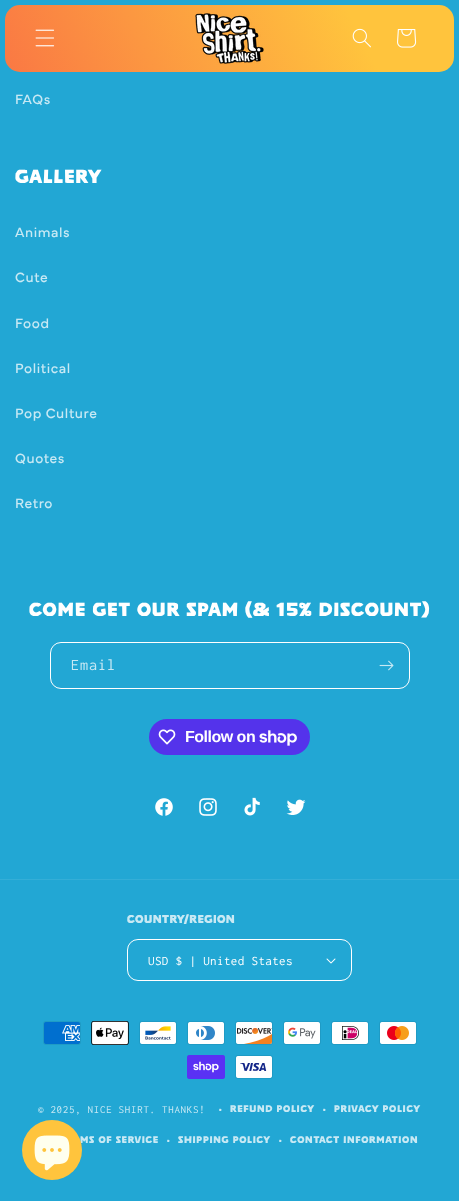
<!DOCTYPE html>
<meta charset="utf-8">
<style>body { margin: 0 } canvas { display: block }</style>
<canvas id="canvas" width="459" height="1201"></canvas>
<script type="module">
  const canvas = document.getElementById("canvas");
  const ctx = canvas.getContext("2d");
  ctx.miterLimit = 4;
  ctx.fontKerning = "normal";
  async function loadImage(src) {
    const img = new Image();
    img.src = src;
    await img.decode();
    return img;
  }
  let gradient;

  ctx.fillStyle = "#22a7d4";
  ctx.fillRect(0, 0, 459, 1201);
  gradient = ctx.createLinearGradient(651, 395, -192, 806);
  gradient.addColorStop(0.11, "#ffc43d");
  gradient.addColorStop(0.81, "#f5304a");
  ctx.fillStyle = gradient;
  ctx.beginPath();
  ctx.roundRect(5, 5, 449, 67, 15);
  ctx.fill();
  ctx.drawImage(await loadImage("img1.png"), 35, 29, 20, 18);
  ctx.drawImage(await loadImage("img2.png"), 195, 13, 69, 51);
  ctx.drawImage(await loadImage("img3.png"), 352, 28, 19, 20);
  ctx.drawImage(await loadImage("img4.png"), 397, 29, 20, 19);
  ctx.letterSpacing = "0.6px";
  ctx.font = "14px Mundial";
  ctx.fillStyle = "#c8e9f4";
  ctx.fillText("FAQs", 15, 104);
  ctx.letterSpacing = "0.8px";
  ctx.font = "500 21.6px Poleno";
  ctx.fillStyle = "#ffffff";
  ctx.fillText("Gallery", 15, 183);
  ctx.letterSpacing = "0.6px";
  ctx.font = "14px Mundial";
  ctx.fillStyle = "#c8e9f4";
  ctx.fillText("Animals", 15, 237);
  ctx.fillText("Cute", 15, 282);
  ctx.fillText("Food", 15, 328);
  ctx.fillText("Political", 15, 373);
  ctx.fillText("Pop Culture", 15, 418);
  ctx.fillText("Quotes", 15, 463);
  ctx.fillText("Retro", 15, 508);
  ctx.letterSpacing = "0.8px";
  ctx.font = "500 21.6px Poleno";
  ctx.fillStyle = "#ffffff";
  ctx.fillText("Come get our spam (& 15% Discount)", 29, 616);
  ctx.beginPath();
  ctx.roundRect(50.5, 642.5, 359, 46, 10.5);
  ctx.strokeStyle = "#ffffff";
  ctx.stroke();
  ctx.letterSpacing = "1px";
  ctx.font = "16px Inconsolata";
  ctx.fillStyle = "#c8e9f4";
  ctx.fillText("Email", 71, 670);
  ctx.drawImage(await loadImage("img5.png"), 379, 660, 15, 11);
  ctx.fillStyle = "#5433eb";
  ctx.beginPath();
  ctx.roundRect(149, 719, 161, 36, 18);
  ctx.fill();
  ctx.drawImage(await loadImage("img6.png"), 158, 729, 18, 16);
  ctx.letterSpacing = "-0.5px";
  ctx.font = "bold 16px Liberation Sans";
  ctx.fillStyle = "#ffffff";
  ctx.fillText("Follow on", 185, 742);
  ctx.drawImage(await loadImage("img7.png"), 259, 730, 38, 16);
  ctx.drawImage(await loadImage("img8.png"), 155, 798, 18, 18);
  ctx.drawImage(await loadImage("img9.png"), 199, 798, 18, 18);
  ctx.drawImage(await loadImage("img10.png"), 244, 797, 16, 19);
  ctx.drawImage(await loadImage("img11.png"), 286, 799, 20, 16);
  ctx.fillStyle = "#34aed7";
  ctx.fillRect(0, 879, 459, 1);
  ctx.letterSpacing = "0.4px";
  ctx.font = "500 13px Poleno";
  ctx.fillStyle = "#c8e9f4";
  ctx.fillText("Country/region", 127, 923);
  ctx.drawImage(await loadImage("img12.png"), 326, 958, 10, 6);
  ctx.beginPath();
  ctx.roundRect(127.5, 939.5, 224, 41, 10.5);
  ctx.stroke();
  ctx.font = "13px Inconsolata";
  ctx.fillStyle = "#ffffff";
  ctx.fillText("USD $ | United States", 148, 965);
  ctx.drawImage(await loadImage("img13.png"), 43, 1021, 38, 24);
  ctx.drawImage(await loadImage("img14.png"), 91, 1021, 38, 24);
  ctx.drawImage(await loadImage("img15.png"), 139, 1021, 38, 24);
  ctx.drawImage(await loadImage("img16.png"), 187, 1021, 38, 24);
  ctx.drawImage(await loadImage("img17.png"), 235, 1021, 38, 24);
  ctx.drawImage(await loadImage("img18.png"), 283, 1021, 38, 24);
  ctx.drawImage(await loadImage("img19.png"), 331, 1021, 38, 24);
  ctx.drawImage(await loadImage("img20.png"), 379, 1021, 38, 24);
  ctx.drawImage(await loadImage("img21.png"), 187, 1055, 38, 24);
  ctx.drawImage(await loadImage("img22.png"), 235, 1055, 38, 24);
  ctx.letterSpacing = "0.7px";
  ctx.font = "11px Inconsolata";
  ctx.fillStyle = "#c8e9f4";
  ctx.fillText("© 2025, NICE SHIRT. THANKS!", 38, 1113);
  ctx.font = "500 10px Poleno";
  ctx.fillText("·", 219, 1113);
  ctx.font = "500 11px Poleno";
  ctx.fillText("Refund policy", 230, 1112);
  ctx.font = "500 10px Poleno";
  ctx.fillText("·", 323, 1113);
  ctx.font = "500 11px Poleno";
  ctx.fillText("Privacy policy", 334, 1112);
  ctx.fillText("ms of service", 80, 1143);
  ctx.font = "500 10px Poleno";
  ctx.fillText("·", 167, 1144);
  ctx.font = "500 11px Poleno";
  ctx.fillText("Shipping policy", 178, 1143);
  ctx.font = "500 10px Poleno";
  ctx.fillText("·", 279, 1144);
  ctx.font = "500 11px Poleno";
  ctx.fillText("Contact information", 290, 1143);
  ctx.fillStyle = "#ffc43d";
  ctx.beginPath();
  ctx.arc(52, 1150, 30, 0, Math.PI * 2);
  ctx.fill();
  ctx.drawImage(await loadImage("img23.png"), 34, 1135, 36, 36);
</script>
